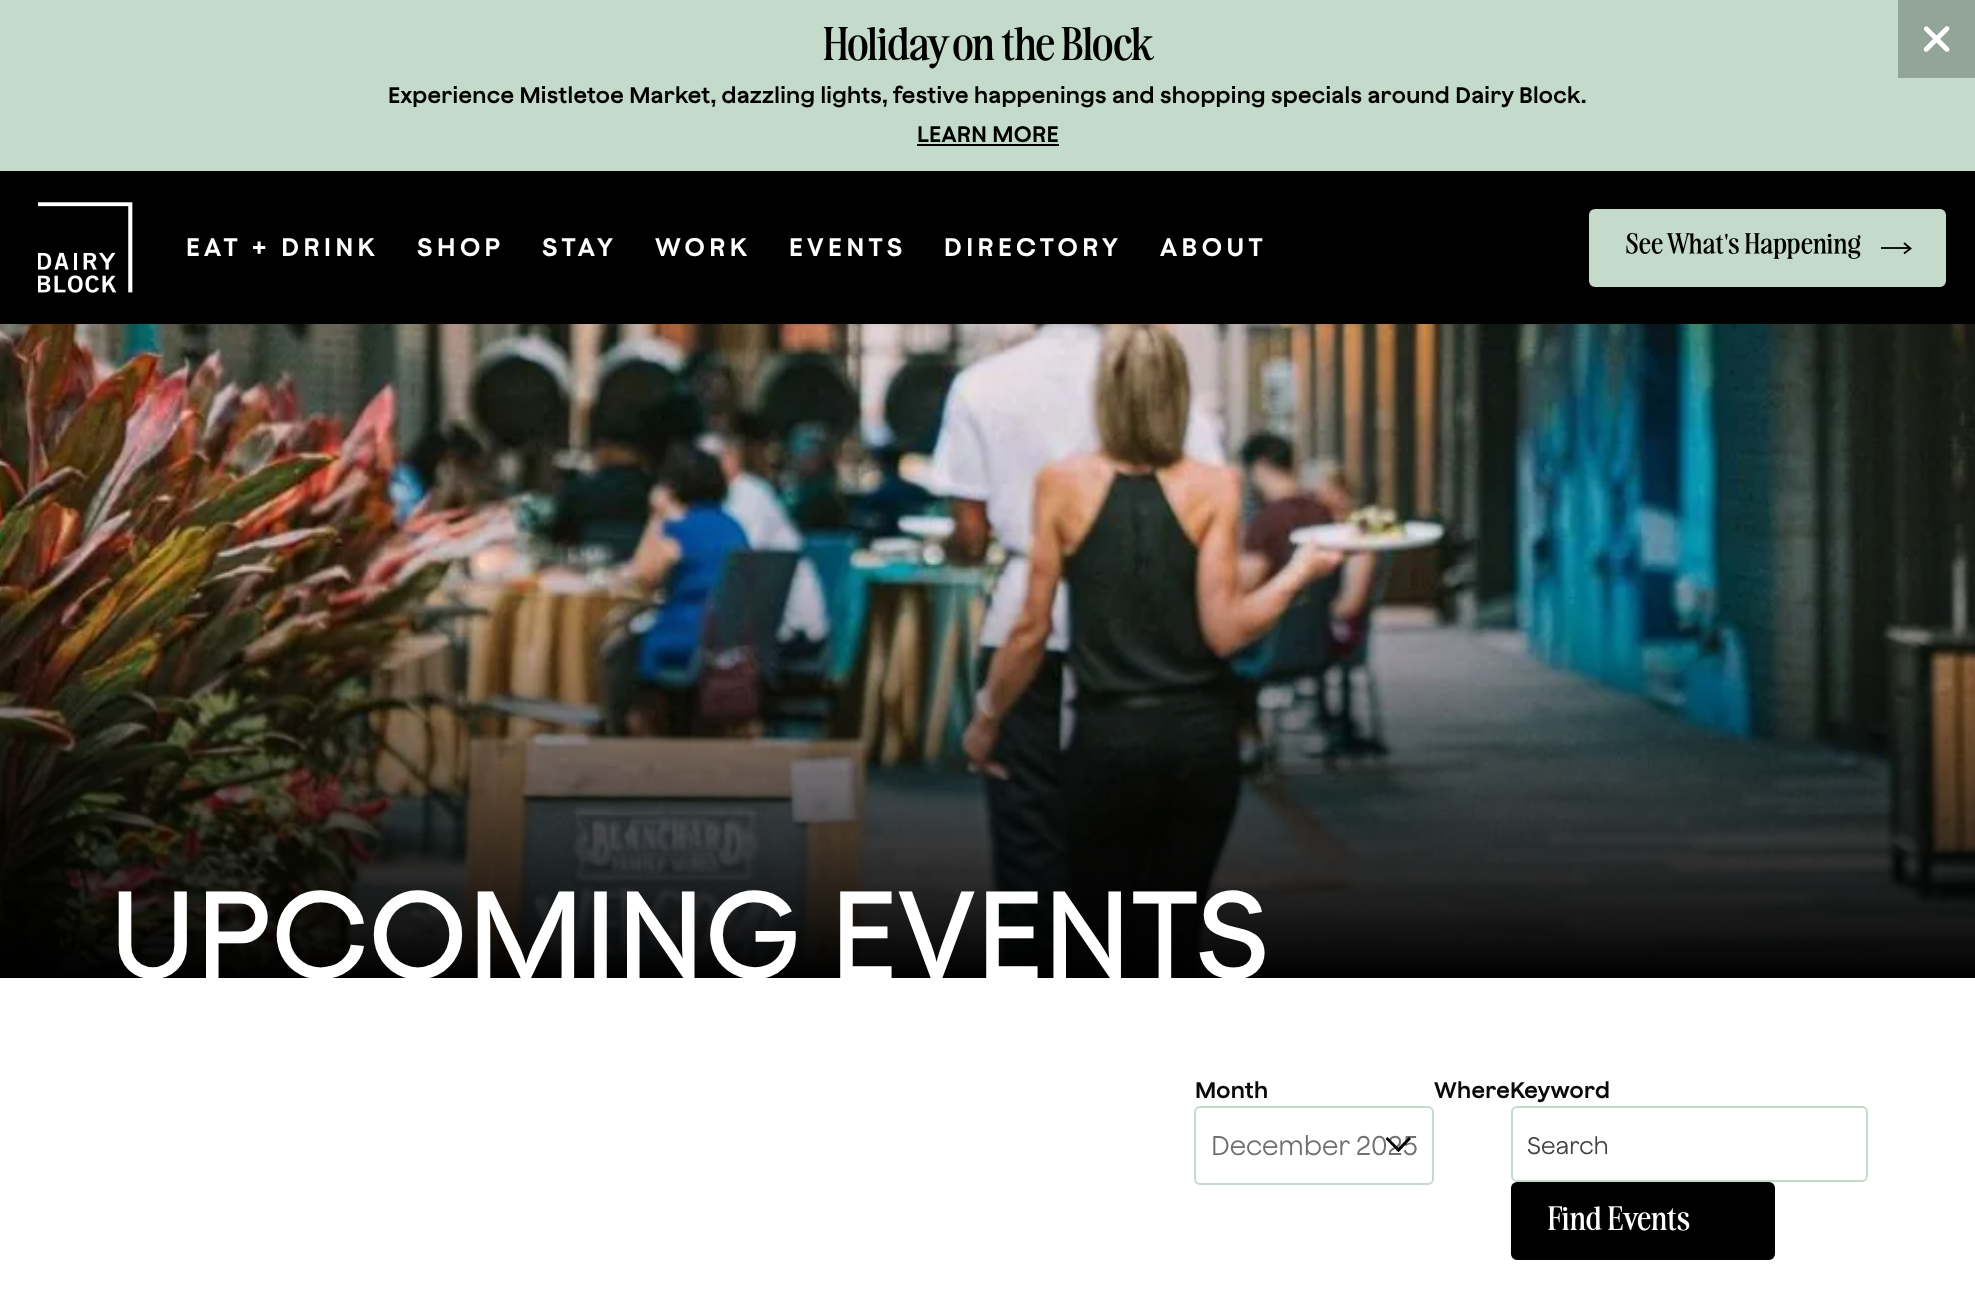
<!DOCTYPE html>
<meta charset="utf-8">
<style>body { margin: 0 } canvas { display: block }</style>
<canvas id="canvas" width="1975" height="1297"></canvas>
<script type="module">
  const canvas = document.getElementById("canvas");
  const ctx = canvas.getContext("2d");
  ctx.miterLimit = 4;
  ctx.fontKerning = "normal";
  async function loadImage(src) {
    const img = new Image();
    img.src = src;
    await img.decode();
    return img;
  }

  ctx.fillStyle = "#ffffff";
  ctx.fillRect(0, 0, 1975, 1297);
  ctx.fillStyle = "#000000";
  ctx.fillRect(0, 171, 1975, 153);
  ctx.fillStyle = "#c4dbcb";
  ctx.fillRect(0, 0, 1975, 171);
  ctx.fillStyle = "#93a498";
  ctx.fillRect(1898, 0, 77, 78);
  ctx.drawImage(await loadImage("img1.png"), 1923, 26, 27, 26);
  ctx.drawImage(await loadImage("img2.png"), 823, 27, 332, 42);
  ctx.letterSpacing = "0.3px";
  ctx.font = "600 22.5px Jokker";
  ctx.fillStyle = "#000000";
  ctx.fillText("Experience Mistletoe Market, dazzling lights, festive happenings and shopping specials around Dairy Block.", 388, 103);
  ctx.fillText("LEARN MORE", 917, 142);
  ctx.fillRect(917, 144, 142, 2);
  ctx.drawImage(await loadImage("img3.png"), 38, 202, 95, 91);
  ctx.letterSpacing = "4.5px";
  ctx.font = "600 25.5px Jokker";
  ctx.fillStyle = "#ffffff";
  ctx.fillText("EAT + DRINK", 186, 256);
  ctx.fillText("SHOP", 417, 256);
  ctx.fillText("STAY", 542, 256);
  ctx.fillText("WORK", 655, 256);
  ctx.fillText("EVENTS", 789, 256);
  ctx.fillText("DIRECTORY", 944, 256);
  ctx.fillText("ABOUT", 1160, 256);
  ctx.fillStyle = "#c4dbcb";
  ctx.beginPath();
  ctx.roundRect(1590, 210, 355, 76, 5);
  ctx.fill();
  ctx.strokeStyle = "#c4dbcb";
  ctx.lineWidth = 2;
  ctx.stroke();
  ctx.drawImage(await loadImage("img4.png"), 1626, 232, 235, 27);
  ctx.fillStyle = "#141614";
  ctx.fillRect(1881, 247, 29, 2);
  ctx.beginPath();
  ctx.moveTo(1904, 253.5);
  ctx.lineTo(1910.5, 248.5);
  ctx.lineTo(1904, 243);
  ctx.strokeStyle = "#000000";
  ctx.lineWidth = 1.8;
  ctx.stroke();
  ctx.drawImage(await loadImage("img5.png"), 0, 324, 1975, 654);
  ctx.letterSpacing = "0.75px";
  ctx.font = "500 123.5px Jokker";
  ctx.fillStyle = "#ffffff";
  ctx.fillText("UPCOMING EVENTS", 110, 978);
  ctx.letterSpacing = "0.3px";
  ctx.font = "600 22.5px Jokker";
  ctx.fillStyle = "#0a0a0a";
  ctx.fillText("Month", 1195, 1098);
  ctx.beginPath();
  ctx.roundRect(1195, 1107, 238, 77, 5);
  ctx.strokeStyle = "#c4dbcb";
  ctx.lineWidth = 2;
  ctx.stroke();
  ctx.letterSpacing = "0px";
  ctx.font = "27px Jokker";
  ctx.fillStyle = "#707070";
  ctx.fillText("December 2025", 1211, 1155);
  ctx.fillStyle = "#000000";
  ctx.beginPath();
  ctx.moveTo(1409, 1137);
  ctx.lineTo(1411, 1139);
  ctx.lineTo(1398.5, 1152);
  ctx.lineTo(1396, 1150);
  ctx.closePath();
  ctx.fill();
  ctx.beginPath();
  ctx.moveTo(1387.5, 1137);
  ctx.lineTo(1400.5, 1150);
  ctx.lineTo(1398.5, 1152);
  ctx.lineTo(1385.5, 1139);
  ctx.closePath();
  ctx.fill();
  ctx.letterSpacing = "0.3px";
  ctx.font = "600 22.5px Jokker";
  ctx.fillStyle = "#0a0a0a";
  ctx.fillText("WhereKeyword", 1434, 1098);
  ctx.beginPath();
  ctx.roundRect(1512, 1107, 355, 74, 5);
  ctx.stroke();
  ctx.letterSpacing = "0px";
  ctx.font = "24px Jokker";
  ctx.fillStyle = "#404040";
  ctx.fillText("Search", 1527, 1154);
  ctx.fillStyle = "#000000";
  ctx.beginPath();
  ctx.roundRect(1512, 1183, 262, 76, 5);
  ctx.fill();
  ctx.strokeStyle = "#000000";
  ctx.stroke();
  ctx.drawImage(await loadImage("img6.png"), 1548, 1206, 142, 25);
</script>
